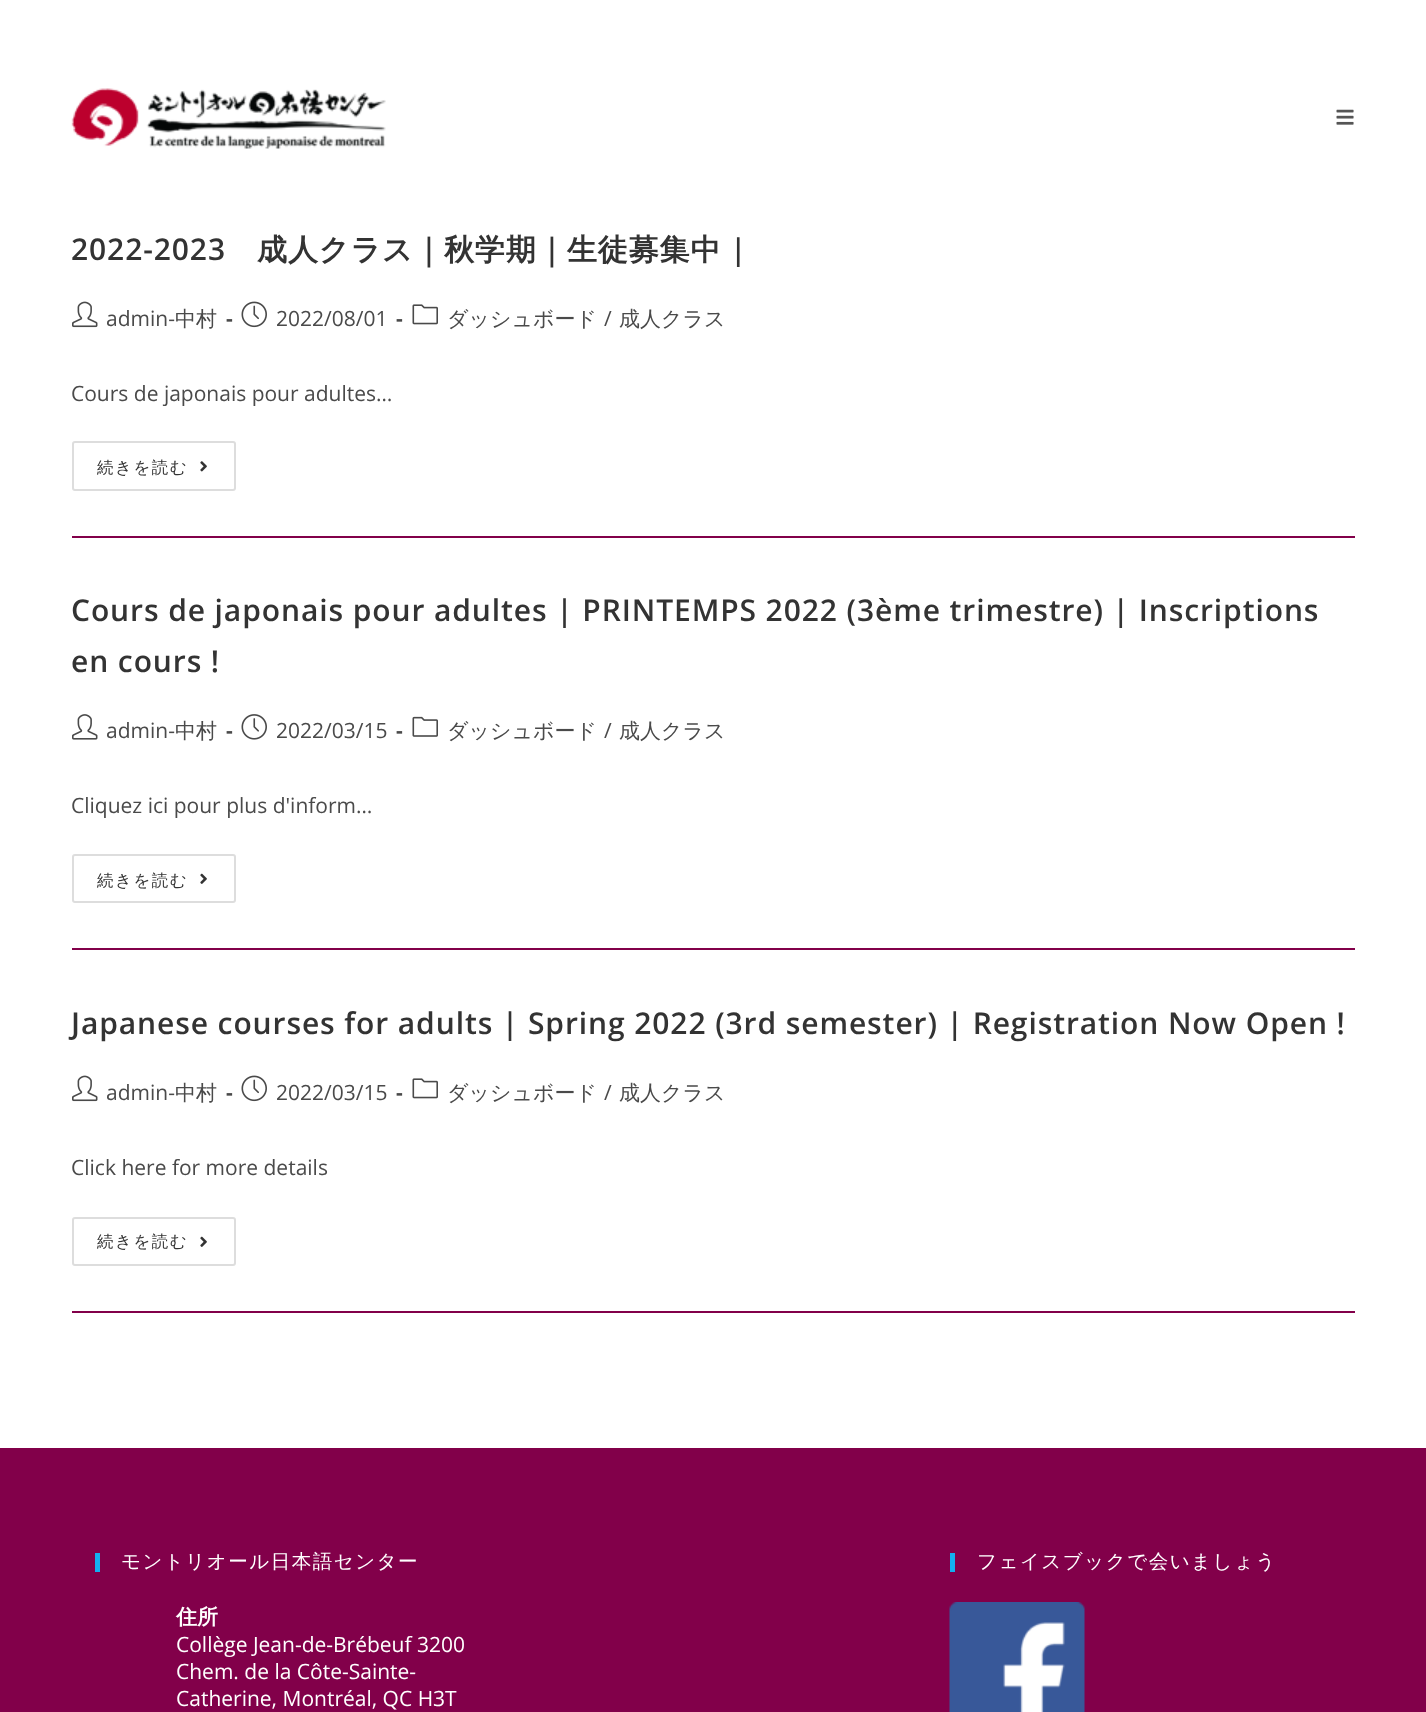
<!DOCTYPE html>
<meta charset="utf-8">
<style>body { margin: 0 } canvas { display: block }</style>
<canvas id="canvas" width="1426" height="1712"></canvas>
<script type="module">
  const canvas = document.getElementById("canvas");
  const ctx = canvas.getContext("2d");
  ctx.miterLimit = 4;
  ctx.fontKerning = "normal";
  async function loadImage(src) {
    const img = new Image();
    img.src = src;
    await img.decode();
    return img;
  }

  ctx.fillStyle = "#ffffff";
  ctx.fillRect(0, 0, 1426, 1712);
  ctx.drawImage(await loadImage("img1.png"), 71, 88, 315, 61);
  ctx.drawImage(await loadImage("img2.png"), 1336, 109, 18, 16);
  ctx.fillStyle = "#82004a";
  ctx.fillRect(72, 536, 1283, 2);
  ctx.letterSpacing = "0.9px";
  ctx.font = "600 30px Open Sans";
  ctx.fillStyle = "#333333";
  ctx.fillText("2022-2023", 71, 260);
  ctx.font = "bold 30px WenQuanYi Zen Hei";
  ctx.fillText("成人クラス｜秋学期｜生徒募集中", 257, 260);
  ctx.font = "600 30px Open Sans";
  ctx.fillText("|", 730, 260);
  ctx.drawImage(await loadImage("img3.png"), 72, 301, 26, 27);
  ctx.letterSpacing = "0px";
  ctx.font = "21px Open Sans";
  ctx.fillStyle = "#4a4a4a";
  ctx.fillText("admin-", 106, 326);
  ctx.font = "500 21px WenQuanYi Zen Hei";
  ctx.fillText("中村", 175, 326);
  ctx.font = "bold 21px Open Sans";
  ctx.fillText("-", 226, 326);
  ctx.drawImage(await loadImage("img4.png"), 241, 301, 26, 27);
  ctx.font = "21px Open Sans";
  ctx.fillText("2022/08/01", 276, 326);
  ctx.font = "bold 21px Open Sans";
  ctx.fillText("-", 396, 326);
  ctx.drawImage(await loadImage("img5.png"), 412, 304, 26, 21);
  ctx.font = "500 21px WenQuanYi Zen Hei";
  ctx.fillText("ダッシュボード", 447, 326);
  ctx.font = "21px Open Sans";
  ctx.fillText("/", 604, 326);
  ctx.font = "500 21px WenQuanYi Zen Hei";
  ctx.fillText("成人クラス", 619, 326);
  ctx.font = "21px Open Sans";
  ctx.fillText("Cours de japonais pour adultes…", 71, 401);
  ctx.beginPath();
  ctx.roundRect(73, 442, 162, 48, 2);
  ctx.strokeStyle = "#dddddd";
  ctx.lineWidth = 2;
  ctx.stroke();
  ctx.letterSpacing = "1.5px";
  ctx.font = "500 16.5px WenQuanYi Zen Hei";
  ctx.fillStyle = "#333333";
  ctx.fillText("続きを読む", 97, 473);
  ctx.drawImage(await loadImage("img6.png"), 200, 461, 7, 11);
  ctx.fillStyle = "#82004a";
  ctx.fillRect(72, 948, 1283, 2);
  ctx.letterSpacing = "0.9px";
  ctx.font = "600 30px Open Sans";
  ctx.fillStyle = "#333333";
  ctx.fillText("Cours de japonais pour adultes | PRINTEMPS 2022 (3ème trimestre) | Inscriptions", 71, 621);
  ctx.fillText("en cours !", 71, 672);
  ctx.drawImage(await loadImage("img7.png"), 72, 714, 26, 26);
  ctx.letterSpacing = "0px";
  ctx.font = "21px Open Sans";
  ctx.fillStyle = "#4a4a4a";
  ctx.fillText("admin-", 106, 738);
  ctx.font = "500 21px WenQuanYi Zen Hei";
  ctx.fillText("中村", 175, 738);
  ctx.font = "bold 21px Open Sans";
  ctx.fillText("-", 226, 738);
  ctx.drawImage(await loadImage("img8.png"), 241, 714, 26, 26);
  ctx.font = "21px Open Sans";
  ctx.fillText("2022/03/15", 276, 738);
  ctx.font = "bold 21px Open Sans";
  ctx.fillText("-", 396, 738);
  ctx.drawImage(await loadImage("img9.png"), 412, 716, 26, 21);
  ctx.font = "500 21px WenQuanYi Zen Hei";
  ctx.fillText("ダッシュボード", 447, 738);
  ctx.font = "21px Open Sans";
  ctx.fillText("/", 604, 738);
  ctx.font = "500 21px WenQuanYi Zen Hei";
  ctx.fillText("成人クラス", 619, 738);
  ctx.font = "21px Open Sans";
  ctx.fillText("Cliquez ici pour plus d'inform…", 71, 813);
  ctx.beginPath();
  ctx.roundRect(73, 855, 162, 47, 2);
  ctx.stroke();
  ctx.letterSpacing = "1.5px";
  ctx.font = "500 16.5px WenQuanYi Zen Hei";
  ctx.fillStyle = "#333333";
  ctx.fillText("続きを読む", 97, 886);
  ctx.drawImage(await loadImage("img10.png"), 200, 873, 7, 11);
  ctx.fillStyle = "#82004a";
  ctx.fillRect(72, 1311, 1283, 2);
  ctx.letterSpacing = "0.9px";
  ctx.font = "600 30px Open Sans";
  ctx.fillStyle = "#333333";
  ctx.fillText("Japanese courses for adults | Spring 2022 (3rd semester) | Registration Now Open !", 71, 1034);
  ctx.drawImage(await loadImage("img3.png"), 72, 1075, 26, 27);
  ctx.letterSpacing = "0px";
  ctx.font = "21px Open Sans";
  ctx.fillStyle = "#4a4a4a";
  ctx.fillText("admin-", 106, 1100);
  ctx.font = "500 21px WenQuanYi Zen Hei";
  ctx.fillText("中村", 175, 1100);
  ctx.font = "bold 21px Open Sans";
  ctx.fillText("-", 226, 1100);
  ctx.drawImage(await loadImage("img4.png"), 241, 1075, 26, 27);
  ctx.font = "21px Open Sans";
  ctx.fillText("2022/03/15", 276, 1100);
  ctx.font = "bold 21px Open Sans";
  ctx.fillText("-", 396, 1100);
  ctx.drawImage(await loadImage("img5.png"), 412, 1078, 26, 21);
  ctx.font = "500 21px WenQuanYi Zen Hei";
  ctx.fillText("ダッシュボード", 447, 1100);
  ctx.font = "21px Open Sans";
  ctx.fillText("/", 604, 1100);
  ctx.font = "500 21px WenQuanYi Zen Hei";
  ctx.fillText("成人クラス", 619, 1100);
  ctx.font = "21px Open Sans";
  ctx.fillText("Click here for more details", 71, 1175);
  ctx.beginPath();
  ctx.roundRect(73, 1218, 162, 47, 2);
  ctx.stroke();
  ctx.letterSpacing = "1.5px";
  ctx.font = "500 16.5px WenQuanYi Zen Hei";
  ctx.fillStyle = "#333333";
  ctx.fillText("続きを読む", 97, 1247);
  ctx.drawImage(await loadImage("img10.png"), 200, 1236, 7, 11);
  ctx.fillStyle = "#82004a";
  ctx.fillRect(0, 1448, 1426, 264);
  ctx.fillStyle = "#13aff0";
  ctx.fillRect(95, 1553, 5, 19);
  ctx.font = "500 19.5px WenQuanYi Zen Hei";
  ctx.fillStyle = "#ffffff";
  ctx.fillText("モントリオール日本語センター", 121, 1568);
  ctx.letterSpacing = "0px";
  ctx.font = "bold 21px WenQuanYi Zen Hei";
  ctx.fillText("住所", 176, 1624);
  ctx.font = "21px Open Sans";
  ctx.fillText("Collège Jean-de-Brébeuf 3200", 176, 1652);
  ctx.fillText("Chem. de la Côte-Sainte-", 176, 1679);
  ctx.fillText("Catherine, Montréal, QC H3T", 176, 1706);
  ctx.fillStyle = "#13aff0";
  ctx.fillRect(950, 1553, 5, 19);
  ctx.letterSpacing = "1.5px";
  ctx.font = "500 19.5px WenQuanYi Zen Hei";
  ctx.fillStyle = "#ffffff";
  ctx.fillText("フェイスブックで会いましょう", 977, 1568);
  ctx.drawImage(await loadImage("img11.png"), 949, 1602, 136, 110);
</script>
